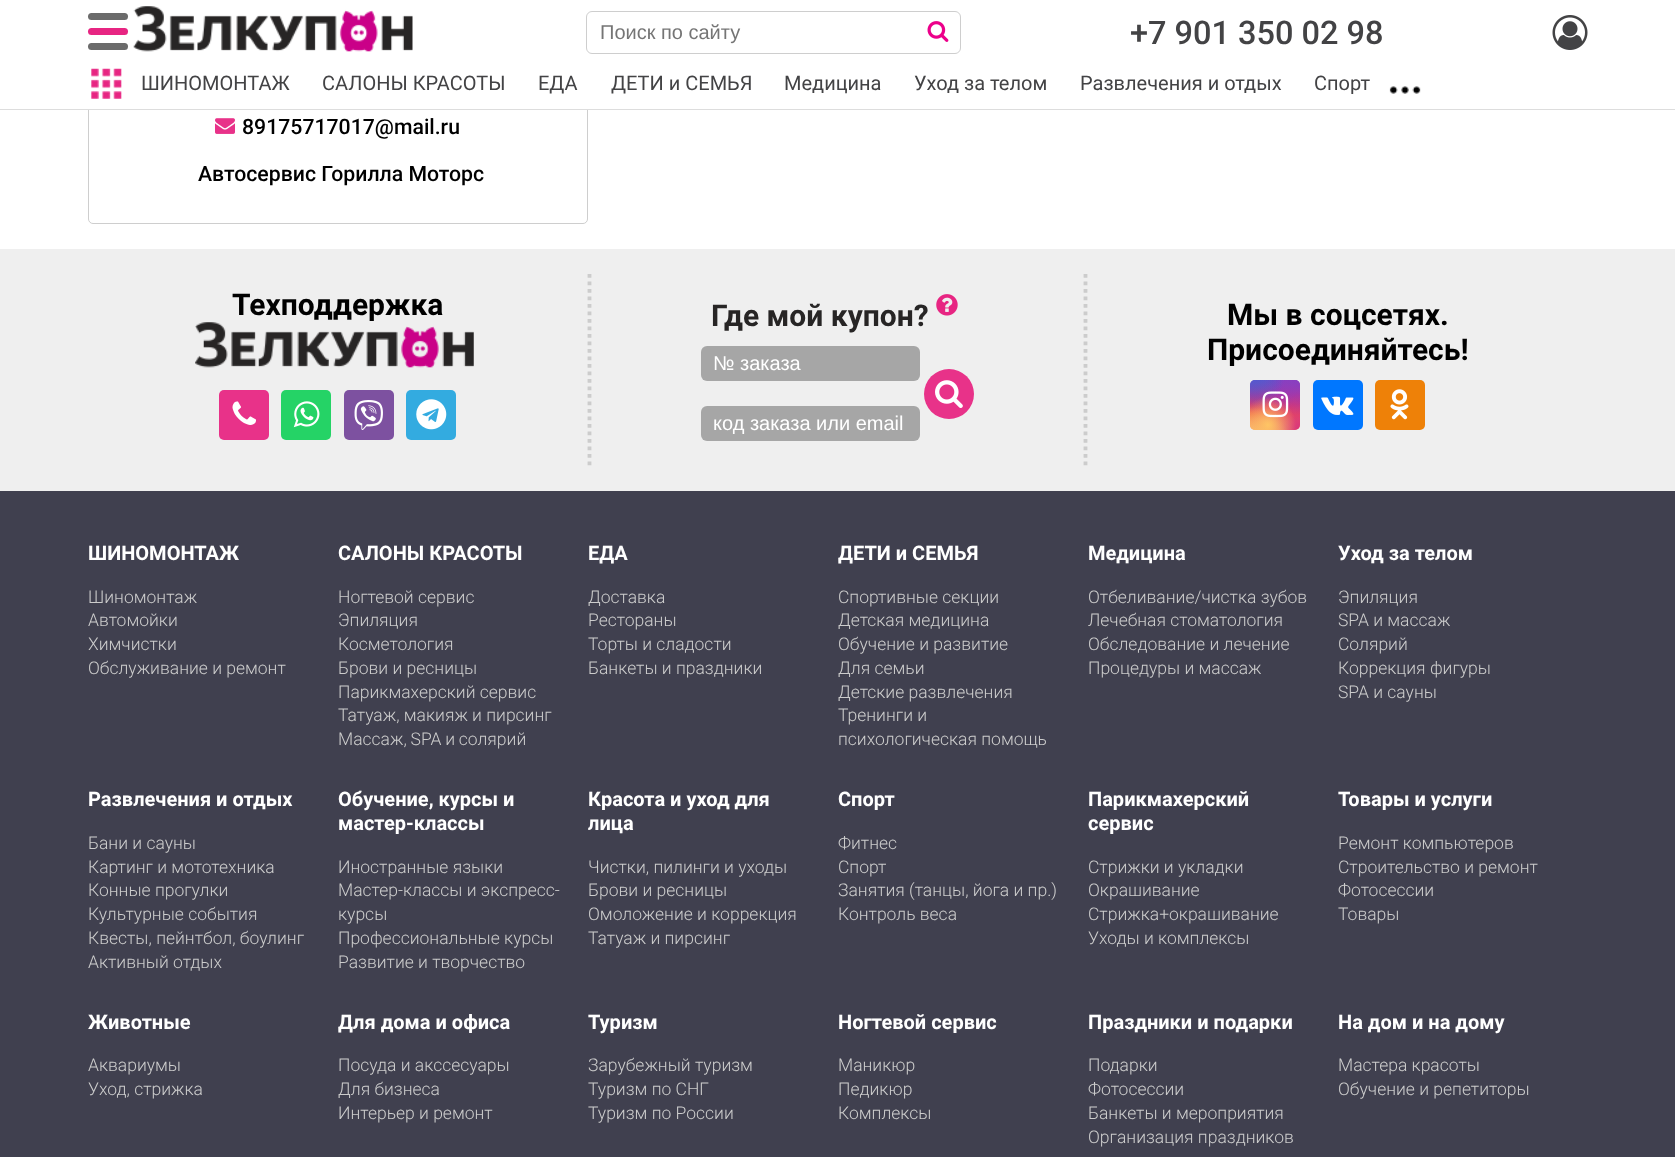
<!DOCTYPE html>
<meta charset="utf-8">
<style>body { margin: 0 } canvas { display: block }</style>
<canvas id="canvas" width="1675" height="1157"></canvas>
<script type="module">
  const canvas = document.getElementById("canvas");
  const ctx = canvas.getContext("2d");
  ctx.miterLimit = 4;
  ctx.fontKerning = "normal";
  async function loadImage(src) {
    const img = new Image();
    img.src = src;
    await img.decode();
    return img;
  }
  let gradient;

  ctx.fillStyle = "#ffffff";
  ctx.fillRect(0, 0, 1675, 1157);
  ctx.beginPath();
  ctx.roundRect(88.5, -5.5, 499, 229, 4.5);
  ctx.strokeStyle = "#cecece";
  ctx.stroke();
  ctx.fillRect(88, 0, 500, 109);
  ctx.fillStyle = "#dddddd";
  ctx.fillRect(0, 109, 1675, 1);
  ctx.fillStyle = "#6b6b6b";
  ctx.beginPath();
  ctx.roundRect(88, 13, 40, 7, 3.5);
  ctx.fill();
  ctx.fillStyle = "#e72582";
  ctx.beginPath();
  ctx.roundRect(88, 28, 40, 7, 3.5);
  ctx.fill();
  ctx.fillStyle = "#6b6b6b";
  ctx.beginPath();
  ctx.roundRect(88, 43, 40, 7, 3.5);
  ctx.fill();
  ctx.drawImage(await loadImage("img1.png"), 133, 6, 280, 46);
  ctx.beginPath();
  ctx.roundRect(586.5, 11.5, 374, 42, 5.5);
  ctx.stroke();
  ctx.font = "20px Liberation Sans";
  ctx.fillStyle = "#757575";
  ctx.fillText("Поиск по сайту", 600, 39);
  ctx.drawImage(await loadImage("img2.png"), 927, 21, 22, 21);
  ctx.font = "500 32.5px Roboto";
  ctx.fillStyle = "#434345";
  ctx.fillText("+7 901 350 02 98", 1130, 44);
  ctx.drawImage(await loadImage("img3.png"), 1552, 15, 36, 35);
  ctx.drawImage(await loadImage("img4.png"), 91, 68, 31, 31);
  ctx.font = "20px Roboto";
  ctx.fillText("ШИНОМОНТАЖ", 141, 90);
  ctx.fillText("САЛОНЫ КРАСОТЫ", 322, 90);
  ctx.fillText("ЕДА", 538, 90);
  ctx.fillText("ДЕТИ и СЕМЬЯ", 611, 90);
  ctx.fillText("Медицина", 784, 90);
  ctx.fillText("Уход за телом", 914, 90);
  ctx.fillText("Развлечения и отдых", 1080, 90);
  ctx.fillText("Спорт", 1314, 90);
  ctx.drawImage(await loadImage("img5.png"), 1389, 86, 32, 8);
  ctx.drawImage(await loadImage("img6.png"), 215, 118, 20, 16);
  ctx.font = "500 21.25px Roboto";
  ctx.fillStyle = "#000000";
  ctx.fillText("89175717017@mail.ru", 242, 134);
  ctx.fillText("Автосервис Горилла Моторс", 198, 181);
  ctx.fillStyle = "#efefef";
  ctx.fillRect(0, 249, 1675, 242);
  ctx.font = "bold 30px Roboto";
  ctx.fillStyle = "#000000";
  ctx.fillText("Техподдержка", 232, 315);
  ctx.drawImage(await loadImage("img7.png"), 195, 322, 279, 46);
  ctx.fillStyle = "#e83289";
  ctx.beginPath();
  ctx.roundRect(219, 390, 50, 50, 5);
  ctx.fill();
  ctx.drawImage(await loadImage("img8.png"), 232, 401, 24, 24);
  ctx.fillStyle = "#25d366";
  ctx.beginPath();
  ctx.roundRect(281, 390, 50, 50, 5);
  ctx.fill();
  ctx.drawImage(await loadImage("img9.png"), 293, 401, 27, 27);
  ctx.fillStyle = "#7d51a0";
  ctx.beginPath();
  ctx.roundRect(344, 390, 50, 50, 5);
  ctx.fill();
  ctx.drawImage(await loadImage("img10.png"), 354, 400, 29, 30);
  ctx.fillStyle = "#33abe0";
  ctx.beginPath();
  ctx.roundRect(406, 390, 50, 50, 5);
  ctx.fill();
  ctx.drawImage(await loadImage("img11.png"), 416, 399, 31, 31);
  ctx.beginPath();
  ctx.moveTo(1085.5, 274);
  ctx.lineTo(1085.5, 466);
  ctx.strokeStyle = "#cccccc";
  ctx.lineWidth = 3.8;
  ctx.setLineDash([3.75, 3.75]);
  ctx.stroke();
  ctx.beginPath();
  ctx.moveTo(589.5, 274);
  ctx.lineTo(589.5, 466);
  ctx.stroke();
  ctx.fillStyle = "#272525";
  ctx.fillText("Где мой купон?", 711, 326);
  ctx.drawImage(await loadImage("img12.png"), 936, 294, 22, 22);
  ctx.fillStyle = "#a6a6a6";
  ctx.beginPath();
  ctx.roundRect(701, 346, 219, 35, 6);
  ctx.fill();
  ctx.font = "20px Liberation Sans";
  ctx.fillStyle = "#ffffff";
  ctx.fillText("№ заказа", 713, 370);
  ctx.fillStyle = "#a6a6a6";
  ctx.beginPath();
  ctx.roundRect(701, 406, 219, 35, 6);
  ctx.fill();
  ctx.fillStyle = "#ffffff";
  ctx.fillText("код заказа или email", 713, 430);
  ctx.fillStyle = "#e83289";
  ctx.beginPath();
  ctx.arc(949, 394, 25, 0, Math.PI * 2);
  ctx.fill();
  ctx.drawImage(await loadImage("img13.png"), 935, 380, 28, 28);
  ctx.font = "bold 30px Roboto";
  ctx.fillStyle = "#000000";
  ctx.fillText("Мы в соцсетях.", 1227, 325);
  ctx.fillText("Присоединяйтесь!", 1207, 360);
  gradient = ctx.createLinearGradient(1275, 380, 1275, 430);
  gradient.addColorStop(0, "#6559ca");
  gradient.addColorStop(0.3, "#bc318f");
  gradient.addColorStop(0.5, "#e33f5f");
  gradient.addColorStop(0.7, "#f77638");
  gradient.addColorStop(1, "#fec66d");
  ctx.fillStyle = gradient;
  ctx.beginPath();
  ctx.roundRect(1250, 380, 50, 50, 5);
  ctx.fill();
  gradient = ctx.createRadialGradient(1300, 430, 0, 1300, 430, 71);
  gradient.addColorStop(0, "#d9317a");
  gradient.addColorStop(1, "rgba(217, 49, 122, 0)");
  ctx.fillStyle = gradient;
  ctx.beginPath();
  ctx.roundRect(1250, 380, 50, 50, 5);
  ctx.fill();
  gradient = ctx.createRadialGradient(1280, 182.82, 0, 1280, 182.82, 42);
  gradient.addColorStop(0, "#893dc2");
  gradient.addColorStop(0.5, "rgba(137, 61, 194, 0)");
  ctx.fillStyle = gradient;
  ctx.beginPath();
  ctx.roundRect(1250, 380, 50, 50, 5);
  ctx.save();
  ctx.clip();
  ctx.scale(1, 85 / 42);
  ctx.fillRect(0, 0, 1675, 572);
  ctx.restore();
  gradient = ctx.createRadialGradient(1300, 380, 0, 1300, 380, 71);
  gradient.addColorStop(0, "#893dc2");
  gradient.addColorStop(0.5, "rgba(137, 61, 194, 0)");
  ctx.fillStyle = gradient;
  ctx.beginPath();
  ctx.roundRect(1250, 380, 50, 50, 5);
  ctx.fill();
  gradient = ctx.createRadialGradient(1260, 190.9, 0, 1260, 190.9, 57);
  gradient.addColorStop(0, "#5258cf");
  gradient.addColorStop(0.5, "rgba(82, 88, 207, 0)");
  ctx.fillStyle = gradient;
  ctx.beginPath();
  ctx.roundRect(1250, 380, 50, 50, 5);
  ctx.save();
  ctx.clip();
  ctx.scale(1, 106 / 57);
  ctx.fillRect(0, 0, 1675, 623);
  ctx.restore();
  gradient = ctx.createRadialGradient(1250, 296.91, 0, 1250, 296.91, 71);
  gradient.addColorStop(0, "#5258cf");
  gradient.addColorStop(0.5, "rgba(82, 88, 207, 0)");
  ctx.fillStyle = gradient;
  ctx.beginPath();
  ctx.roundRect(1250, 380, 50, 50, 5);
  ctx.save();
  ctx.clip();
  ctx.scale(1, 88 / 71);
  ctx.fillRect(0, 0, 1675, 934);
  ctx.restore();
  gradient = ctx.createRadialGradient(1250, 450, 0, 1250, 450, 86);
  gradient.addColorStop(0, "#fec564");
  gradient.addColorStop(0.5, "rgba(254, 197, 100, 0)");
  ctx.fillStyle = gradient;
  ctx.beginPath();
  ctx.roundRect(1250, 380, 50, 50, 5);
  ctx.fill();
  gradient = ctx.createRadialGradient(1268, 425, 0, 1268, 425, 56);
  gradient.addColorStop(0, "#fec564");
  gradient.addColorStop(0.5, "rgba(254, 197, 100, 0)");
  ctx.fillStyle = gradient;
  ctx.beginPath();
  ctx.roundRect(1250, 380, 50, 50, 5);
  ctx.fill();
  ctx.drawImage(await loadImage("img14.png"), 1262, 391, 27, 27);
  ctx.fillStyle = "#0077ff";
  ctx.beginPath();
  ctx.roundRect(1313, 380, 50, 50, 5);
  ctx.fill();
  ctx.drawImage(await loadImage("img15.png"), 1321, 396, 33, 19);
  ctx.fillStyle = "#ee8108";
  ctx.beginPath();
  ctx.roundRect(1375, 380, 50, 50, 5);
  ctx.fill();
  ctx.drawImage(await loadImage("img16.png"), 1390, 389, 19, 31);
  ctx.fillStyle = "#40404f";
  ctx.fillRect(0, 491, 1675, 666);
  ctx.font = "bold 20px Roboto";
  ctx.fillStyle = "#ffffff";
  ctx.fillText("ШИНОМОНТАЖ", 88, 560);
  ctx.font = "300 17.5px Roboto";
  ctx.fillStyle = "#cccccc";
  ctx.fillText("Шиномонтаж", 88, 603);
  ctx.fillText("Автомойки", 88, 626);
  ctx.fillText("Химчистки", 88, 650);
  ctx.fillText("Обслуживание и ремонт", 88, 674);
  ctx.font = "bold 20px Roboto";
  ctx.fillStyle = "#ffffff";
  ctx.fillText("САЛОНЫ КРАСОТЫ", 338, 560);
  ctx.font = "300 17.5px Roboto";
  ctx.fillStyle = "#cccccc";
  ctx.fillText("Ногтевой сервис", 338, 603);
  ctx.fillText("Эпиляция", 338, 626);
  ctx.fillText("Косметология", 338, 650);
  ctx.fillText("Брови и ресницы", 338, 674);
  ctx.fillText("Парикмахерский сервис", 338, 698);
  ctx.fillText("Татуаж, макияж и пирсинг", 338, 721);
  ctx.wordSpacing = "-0.5px";
  ctx.fillText("Массаж, SPA и солярий", 338, 745);
  ctx.wordSpacing = "0px";
  ctx.font = "bold 20px Roboto";
  ctx.fillStyle = "#ffffff";
  ctx.fillText("ЕДА", 588, 560);
  ctx.font = "300 17.5px Roboto";
  ctx.fillStyle = "#cccccc";
  ctx.fillText("Доставка", 588, 603);
  ctx.fillText("Рестораны", 588, 626);
  ctx.fillText("Торты и сладости", 588, 650);
  ctx.fillText("Банкеты и праздники", 588, 674);
  ctx.font = "bold 20px Roboto";
  ctx.fillStyle = "#ffffff";
  ctx.fillText("ДЕТИ и СЕМЬЯ", 838, 560);
  ctx.font = "300 17.5px Roboto";
  ctx.fillStyle = "#cccccc";
  ctx.fillText("Спортивные секции", 838, 603);
  ctx.fillText("Детская медицина", 838, 626);
  ctx.fillText("Обучение и развитие", 838, 650);
  ctx.fillText("Для семьи", 838, 674);
  ctx.fillText("Детские развлечения", 838, 698);
  ctx.fillText("Тренинги и", 838, 721);
  ctx.fillText("психологическая помощь", 838, 745);
  ctx.font = "bold 20px Roboto";
  ctx.fillStyle = "#ffffff";
  ctx.fillText("Медицина", 1088, 560);
  ctx.font = "300 17.5px Roboto";
  ctx.fillStyle = "#cccccc";
  ctx.fillText("Отбеливание/чистка зубов", 1088, 603);
  ctx.fillText("Лечебная стоматология", 1088, 626);
  ctx.fillText("Обследование и лечение", 1088, 650);
  ctx.fillText("Процедуры и массаж", 1088, 674);
  ctx.font = "bold 20px Roboto";
  ctx.fillStyle = "#ffffff";
  ctx.fillText("Уход за телом", 1338, 560);
  ctx.font = "300 17.5px Roboto";
  ctx.fillStyle = "#cccccc";
  ctx.fillText("Эпиляция", 1338, 603);
  ctx.fillText("SPA и массаж", 1338, 626);
  ctx.fillText("Солярий", 1338, 650);
  ctx.fillText("Коррекция фигуры", 1338, 674);
  ctx.fillText("SPA и сауны", 1338, 698);
  ctx.font = "bold 20px Roboto";
  ctx.fillStyle = "#ffffff";
  ctx.fillText("Развлечения и отдых", 88, 806);
  ctx.font = "300 17.5px Roboto";
  ctx.fillStyle = "#cccccc";
  ctx.fillText("Бани и сауны", 88, 849);
  ctx.fillText("Картинг и мототехника", 88, 873);
  ctx.fillText("Конные прогулки", 88, 896);
  ctx.fillText("Культурные события", 88, 920);
  ctx.fillText("Квесты, пейнтбол, боулинг", 88, 944);
  ctx.fillText("Активный отдых", 88, 968);
  ctx.font = "bold 20px Roboto";
  ctx.fillStyle = "#ffffff";
  ctx.fillText("Обучение, курсы и", 338, 806);
  ctx.fillText("мастер-классы", 338, 830);
  ctx.font = "300 17.5px Roboto";
  ctx.fillStyle = "#cccccc";
  ctx.fillText("Иностранные языки", 338, 873);
  ctx.fillText("Мастер-классы и экспресс-", 338, 896);
  ctx.fillText("курсы", 338, 920);
  ctx.fillText("Профессиональные курсы", 338, 944);
  ctx.fillText("Развитие и творчество", 338, 968);
  ctx.font = "bold 20px Roboto";
  ctx.fillStyle = "#ffffff";
  ctx.fillText("Красота и уход для", 588, 806);
  ctx.fillText("лица", 588, 830);
  ctx.font = "300 17.5px Roboto";
  ctx.fillStyle = "#cccccc";
  ctx.fillText("Чистки, пилинги и уходы", 588, 873);
  ctx.fillText("Брови и ресницы", 588, 896);
  ctx.fillText("Омоложение и коррекция", 588, 920);
  ctx.fillText("Татуаж и пирсинг", 588, 944);
  ctx.font = "bold 20px Roboto";
  ctx.fillStyle = "#ffffff";
  ctx.fillText("Спорт", 838, 806);
  ctx.font = "300 17.5px Roboto";
  ctx.fillStyle = "#cccccc";
  ctx.fillText("Фитнес", 838, 849);
  ctx.fillText("Спорт", 838, 873);
  ctx.fillText("Занятия (танцы, йога и пр.)", 838, 896);
  ctx.fillText("Контроль веса", 838, 920);
  ctx.font = "bold 20px Roboto";
  ctx.fillStyle = "#ffffff";
  ctx.fillText("Парикмахерский", 1088, 806);
  ctx.fillText("сервис", 1088, 830);
  ctx.font = "300 17.5px Roboto";
  ctx.fillStyle = "#cccccc";
  ctx.fillText("Стрижки и укладки", 1088, 873);
  ctx.fillText("Окрашивание", 1088, 896);
  ctx.fillText("Стрижка+окрашивание", 1088, 920);
  ctx.fillText("Уходы и комплексы", 1088, 944);
  ctx.font = "bold 20px Roboto";
  ctx.fillStyle = "#ffffff";
  ctx.fillText("Товары и услуги", 1338, 806);
  ctx.font = "300 17.5px Roboto";
  ctx.fillStyle = "#cccccc";
  ctx.fillText("Ремонт компьютеров", 1338, 849);
  ctx.fillText("Строительство и ремонт", 1338, 873);
  ctx.fillText("Фотосессии", 1338, 896);
  ctx.fillText("Товары", 1338, 920);
  ctx.font = "bold 20px Roboto";
  ctx.fillStyle = "#ffffff";
  ctx.fillText("Животные", 88, 1029);
  ctx.font = "300 17.5px Roboto";
  ctx.fillStyle = "#cccccc";
  ctx.fillText("Аквариумы", 88, 1071);
  ctx.fillText("Уход, стрижка", 88, 1095);
  ctx.font = "bold 20px Roboto";
  ctx.fillStyle = "#ffffff";
  ctx.fillText("Для дома и офиса", 338, 1029);
  ctx.font = "300 17.5px Roboto";
  ctx.fillStyle = "#cccccc";
  ctx.fillText("Посуда и акссесуары", 338, 1071);
  ctx.fillText("Для бизнеса", 338, 1095);
  ctx.fillText("Интерьер и ремонт", 338, 1119);
  ctx.font = "bold 20px Roboto";
  ctx.fillStyle = "#ffffff";
  ctx.fillText("Туризм", 588, 1029);
  ctx.font = "300 17.5px Roboto";
  ctx.fillStyle = "#cccccc";
  ctx.fillText("Зарубежный туризм", 588, 1071);
  ctx.fillText("Туризм по СНГ", 588, 1095);
  ctx.fillText("Туризм по России", 588, 1119);
  ctx.font = "bold 20px Roboto";
  ctx.fillStyle = "#ffffff";
  ctx.fillText("Ногтевой сервис", 838, 1029);
  ctx.font = "300 17.5px Roboto";
  ctx.fillStyle = "#cccccc";
  ctx.fillText("Маникюр", 838, 1071);
  ctx.fillText("Педикюр", 838, 1095);
  ctx.fillText("Комплексы", 838, 1119);
  ctx.font = "bold 20px Roboto";
  ctx.fillStyle = "#ffffff";
  ctx.fillText("Праздники и подарки", 1088, 1029);
  ctx.font = "300 17.5px Roboto";
  ctx.fillStyle = "#cccccc";
  ctx.fillText("Подарки", 1088, 1071);
  ctx.fillText("Фотосессии", 1088, 1095);
  ctx.fillText("Банкеты и мероприятия", 1088, 1119);
  ctx.fillText("Организация праздников", 1088, 1143);
  ctx.font = "bold 20px Roboto";
  ctx.fillStyle = "#ffffff";
  ctx.fillText("На дом и на дому", 1338, 1029);
  ctx.font = "300 17.5px Roboto";
  ctx.fillStyle = "#cccccc";
  ctx.fillText("Мастера красоты", 1338, 1071);
  ctx.fillText("Обучение и репетиторы", 1338, 1095);
</script>
